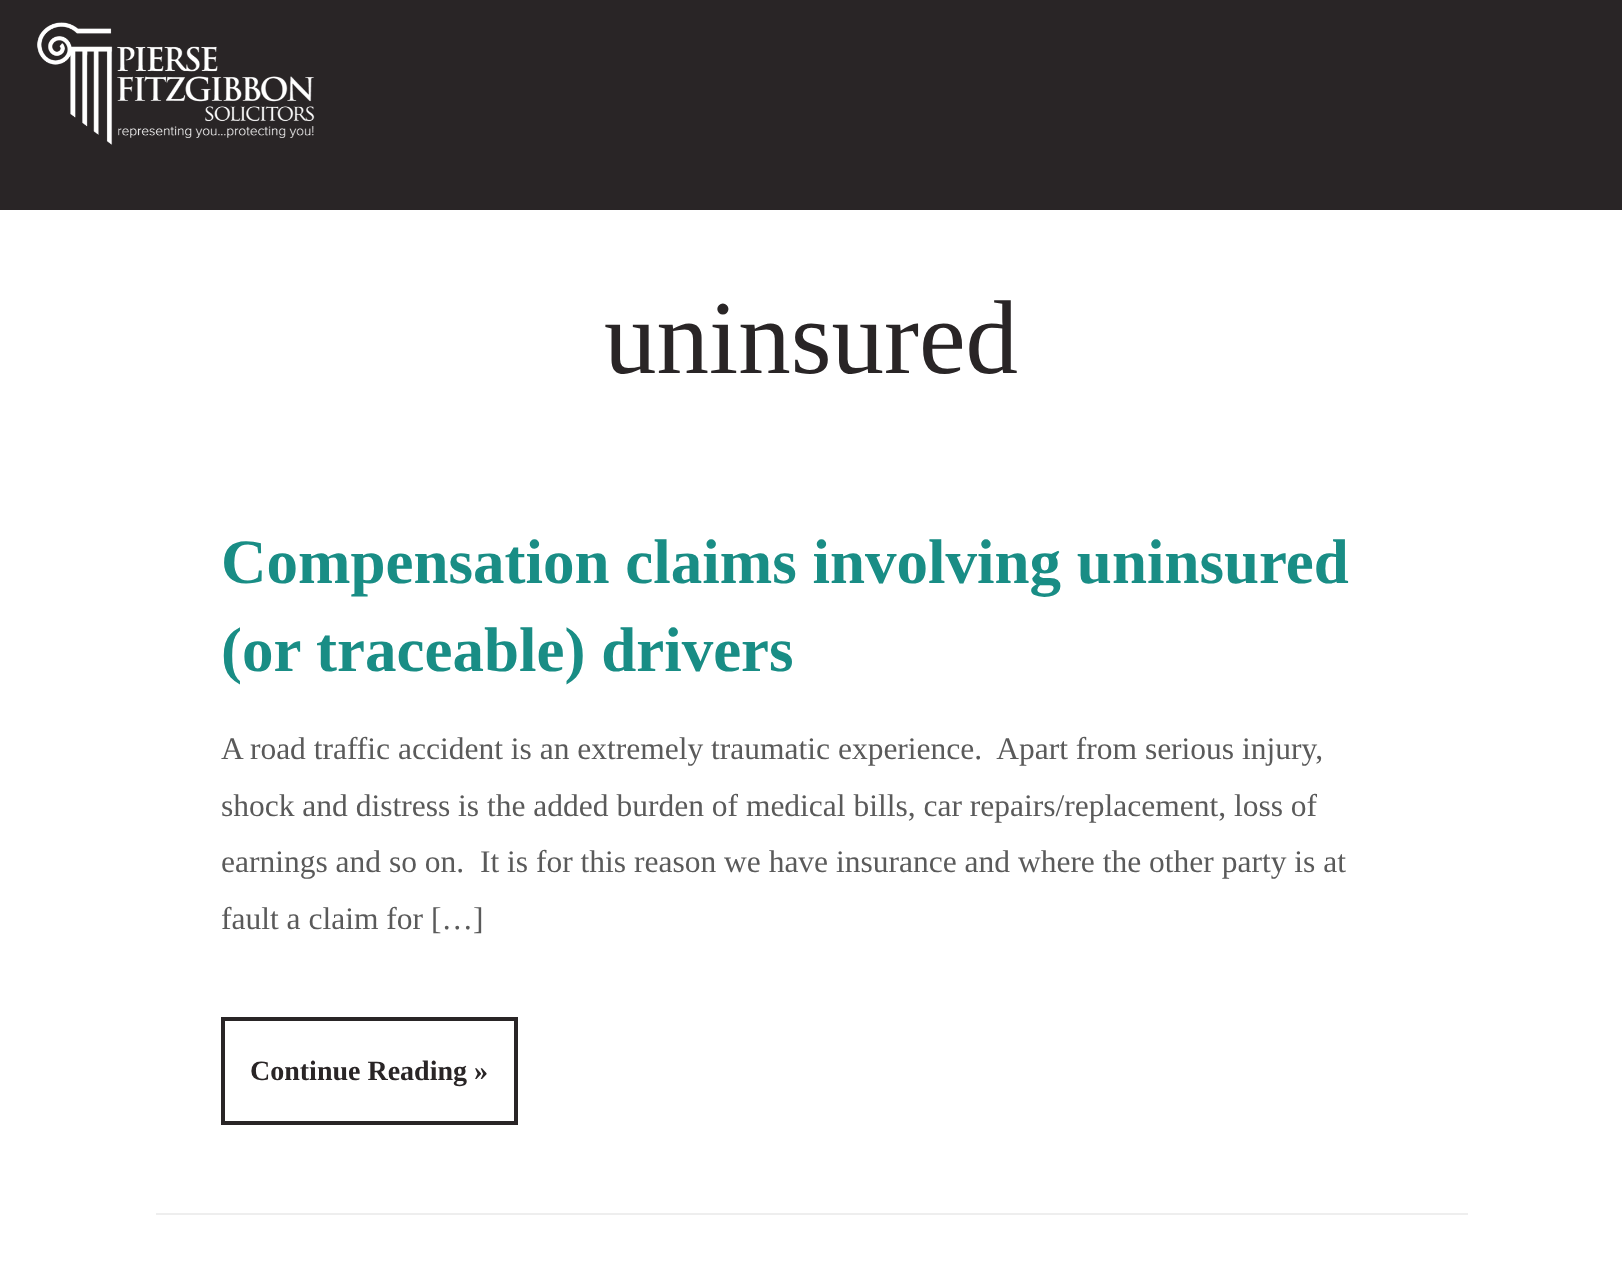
<!DOCTYPE html>
<meta charset="utf-8">
<style>body { margin: 0 } canvas { display: block }</style>
<canvas id="canvas" width="1622" height="1270"></canvas>
<script type="module">
  const canvas = document.getElementById("canvas");
  const ctx = canvas.getContext("2d");
  ctx.miterLimit = 4;
  ctx.fontKerning = "normal";
  async function loadImage(src) {
    const img = new Image();
    img.src = src;
    await img.decode();
    return img;
  }

  ctx.fillStyle = "#ffffff";
  ctx.fillRect(0, 0, 1622, 1270);
  ctx.fillStyle = "#292526";
  ctx.fillRect(0, 0, 1622, 210);
  ctx.drawImage(await loadImage("img1.png"), 37, 22, 278, 123);
  ctx.font = "105px Liberation Serif";
  ctx.fillText("uninsured", 604, 373);
  ctx.fillStyle = "#eeeeee";
  ctx.fillRect(156, 1213, 1312, 2);
  ctx.font = "bold 63px Liberation Serif";
  ctx.fillStyle = "#198d85";
  ctx.fillText("Compensation claims involving uninsured", 221, 583);
  ctx.fillText("(or traceable) drivers", 221, 671);
  ctx.font = "31.5px Liberation Serif";
  ctx.fillStyle = "#5a5a5a";
  ctx.fillText("A road traffic accident is an extremely traumatic experience.  Apart from serious injury,", 221, 759);
  ctx.fillText("shock and distress is the added burden of medical bills, car repairs/replacement, loss of", 221, 816);
  ctx.fillText("earnings and so on.  It is for this reason we have insurance and where the other party is at", 221, 872);
  ctx.fillText("fault a claim for […]", 221, 929);
  ctx.strokeStyle = "#292526";
  ctx.lineWidth = 4;
  ctx.strokeRect(223, 1019, 293, 104);
  ctx.font = "bold 28px Liberation Serif";
  ctx.fillStyle = "#292526";
  ctx.fillText("Continue Reading »", 250, 1080);
</script>
